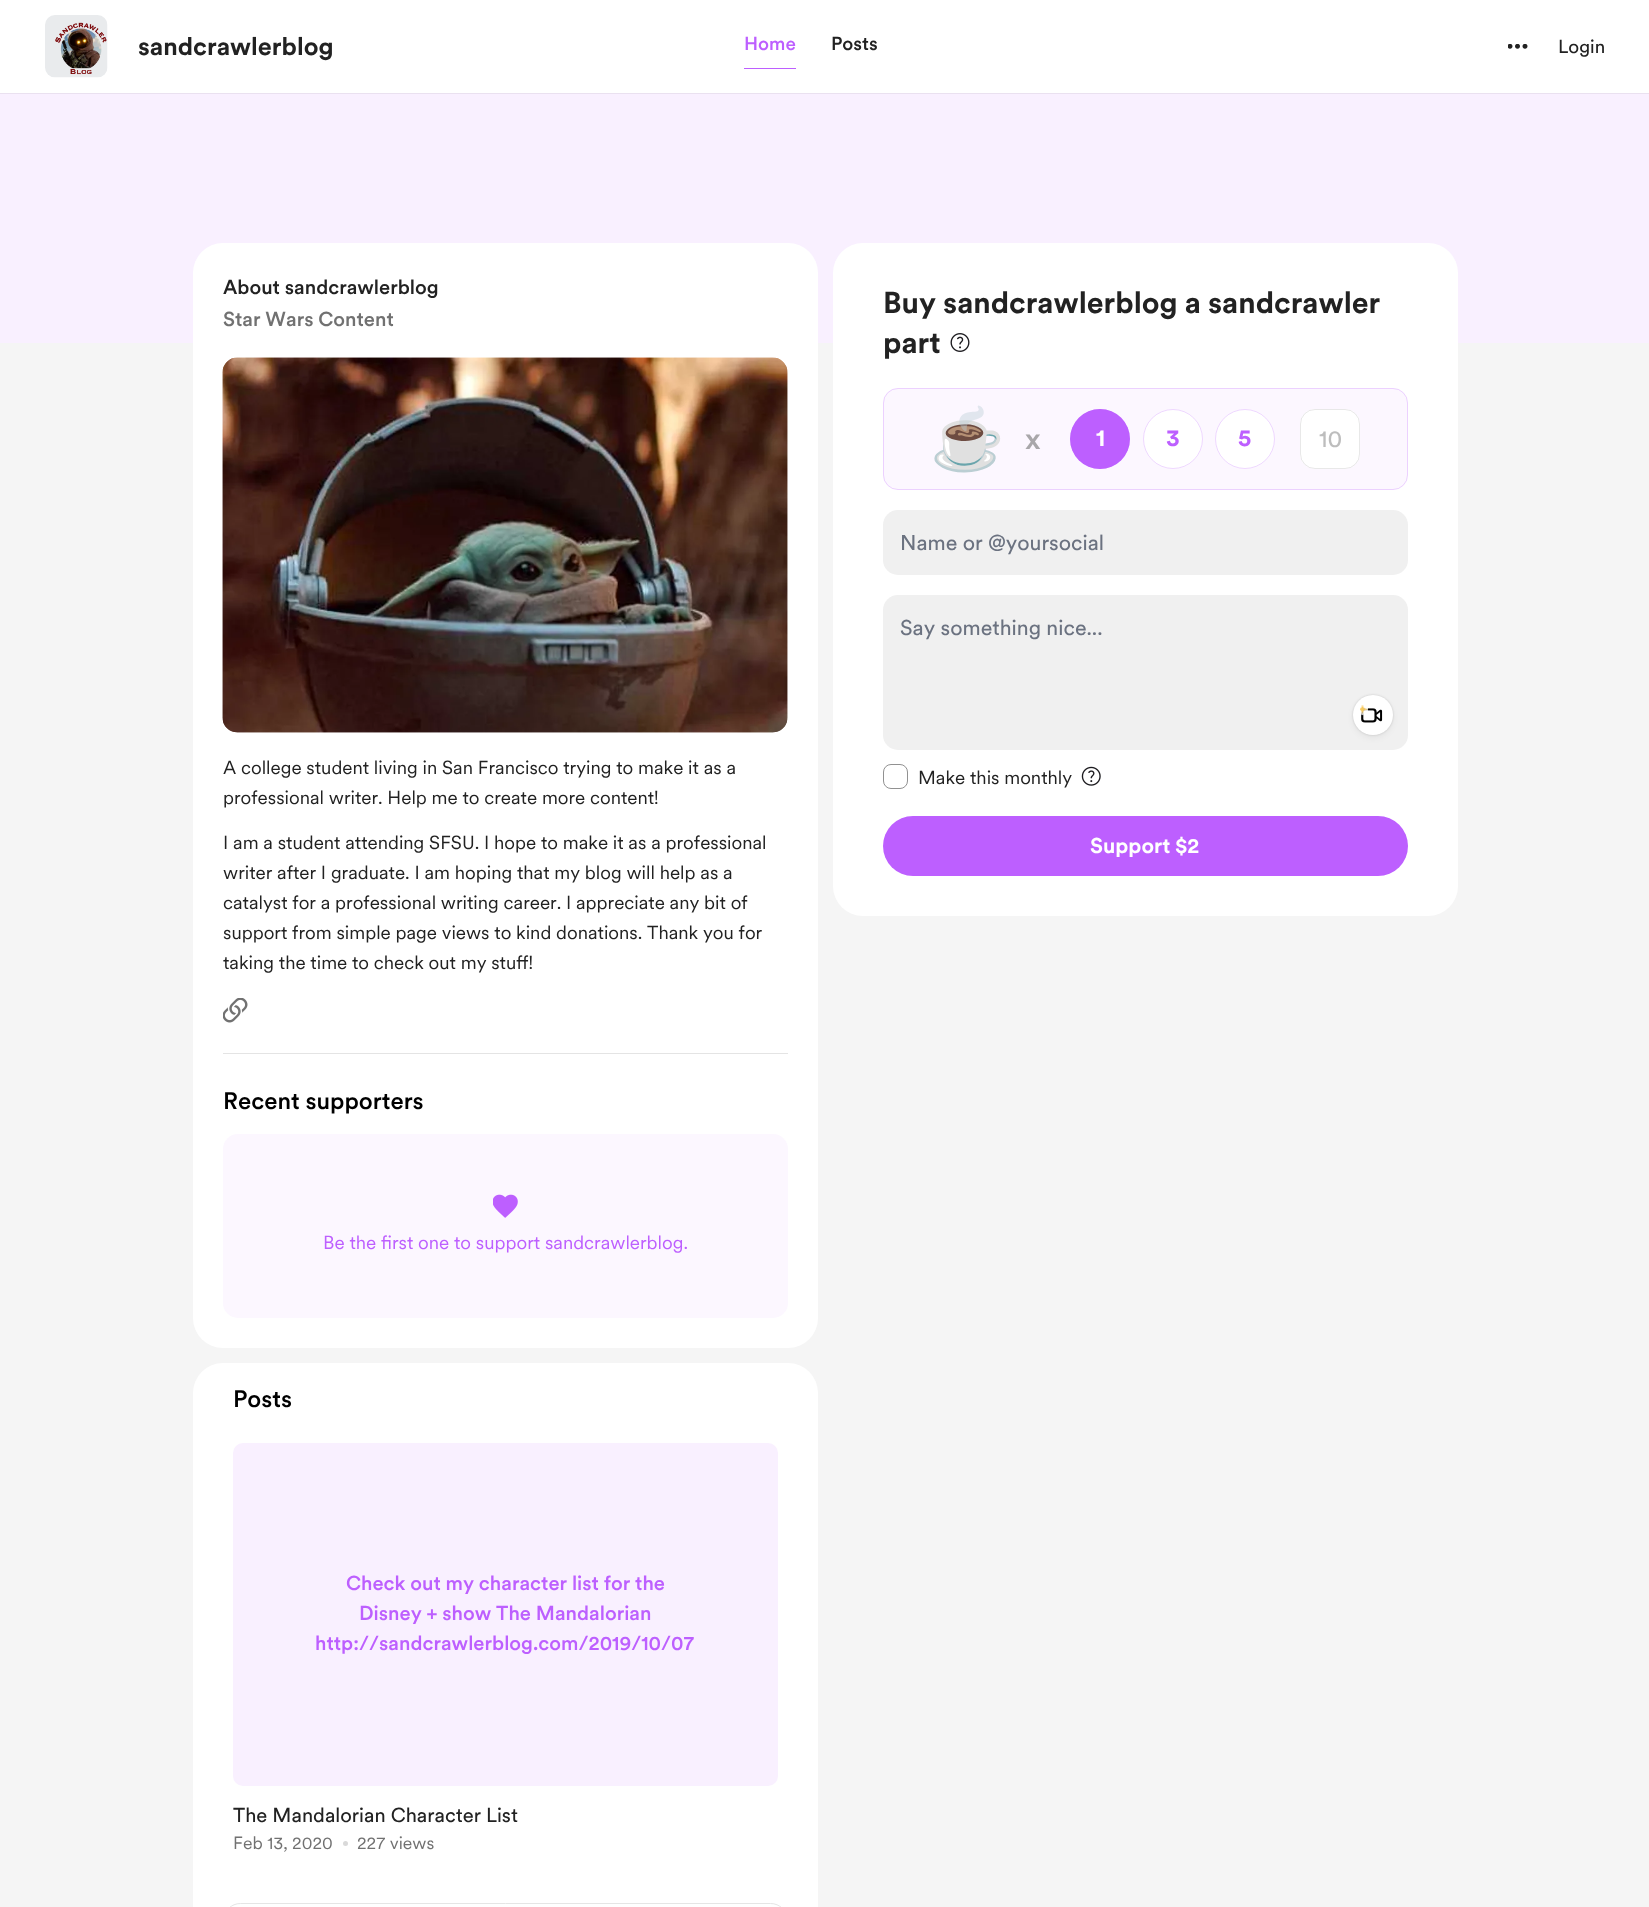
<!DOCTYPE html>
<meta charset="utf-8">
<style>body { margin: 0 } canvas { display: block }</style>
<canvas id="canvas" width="1649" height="1907"></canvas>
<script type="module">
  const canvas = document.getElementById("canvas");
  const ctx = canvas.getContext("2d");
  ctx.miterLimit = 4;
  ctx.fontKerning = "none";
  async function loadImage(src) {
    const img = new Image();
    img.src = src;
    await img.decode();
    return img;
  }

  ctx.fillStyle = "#f5f5f5";
  ctx.fillRect(0, 0, 1649, 1907);
  ctx.fillStyle = "#f9f0ff";
  ctx.fillRect(0, 93, 1649, 250);
  ctx.fillStyle = "rgba(0, 0, 0, 0.06)";
  ctx.filter = "blur(0.5px)";
  ctx.beginPath();
  ctx.rect(0, 1, 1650, 93);
  ctx.fill();
  ctx.filter = "none";
  ctx.fillStyle = "#ffffff";
  ctx.fillRect(0, 0, 1649, 93);
  ctx.drawImage(await loadImage("img1.png"), 45, 15, 63, 63);
  ctx.drawImage(await loadImage("img2.png"), 55, 22, 52, 53);
  ctx.font = "bold 25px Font";
  ctx.fillStyle = "#222222";
  ctx.fillText("sandcrawlerblog", 138, 55);
  ctx.font = "500 18.75px Font";
  ctx.fillStyle = "#bd5fff";
  ctx.fillText("Home", 744, 50);
  ctx.fillRect(744, 68, 52, 1);
  ctx.fillStyle = "#222222";
  ctx.fillText("Posts", 831, 50);
  ctx.drawImage(await loadImage("img3.png"), 1508, 44, 20, 5);
  ctx.font = "18.75px 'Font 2'";
  ctx.fillText("Login", 1558, 53);
  ctx.fillStyle = "#ffffff";
  ctx.beginPath();
  ctx.roundRect(193, 243, 625, 1105, 30);
  ctx.fill();
  ctx.fillStyle = "#e4e4e4";
  ctx.fillRect(223, 1053, 565, 1);
  ctx.font = "500 20px Font";
  ctx.fillStyle = "#222222";
  ctx.fillText("About sandcrawlerblog", 223, 294);
  ctx.fillStyle = "#717171";
  ctx.fillText("Star Wars Content", 223, 326);
  ctx.drawImage(await loadImage("img4.png"), 222, 357, 566, 376);
  ctx.drawImage(await loadImage("img5.png"), 222, 357, 566, 376);
  ctx.font = "18.75px Font";
  ctx.fillStyle = "#222222";
  ctx.fillText("A college student living in San Francisco trying to make it as a", 223, 774);
  ctx.fillText("professional writer. Help me to create more content!", 223, 804);
  ctx.fillText("I am a student attending SFSU. I hope to make it as a professional", 223, 849);
  ctx.fillText("writer after I graduate. I am hoping that my blog will help as a", 223, 879);
  ctx.fillText("catalyst for a professional writing career. I appreciate any bit of", 223, 909);
  ctx.fillText("support from simple page views to kind donations. Thank you for", 223, 939);
  ctx.fillText("taking the time to check out my stuff!", 223, 969);
  ctx.drawImage(await loadImage("img6.png"), 223, 998, 25, 25);
  ctx.font = "500 23.75px Font";
  ctx.fillStyle = "#000000";
  ctx.fillText("Recent supporters", 223, 1109);
  ctx.fillStyle = "#fcf7ff";
  ctx.beginPath();
  ctx.roundRect(223, 1134, 565, 184, 15);
  ctx.fill();
  ctx.drawImage(await loadImage("img7.png"), 493, 1194, 25, 24);
  ctx.font = "18.75px Font";
  ctx.fillStyle = "#bd5fff";
  ctx.fillText("Be the first one to support sandcrawlerblog.", 323, 1249);
  ctx.fillStyle = "#ffffff";
  ctx.beginPath();
  ctx.roundRect(193, 1363, 625, 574, 30);
  ctx.fill();
  ctx.font = "500 23.75px Font";
  ctx.fillStyle = "#000000";
  ctx.fillText("Posts", 233, 1407);
  ctx.fillStyle = "#f9f0ff";
  ctx.beginPath();
  ctx.roundRect(233, 1443, 545, 343, 10);
  ctx.fill();
  ctx.font = "500 20px Font";
  ctx.fillStyle = "#bd5fff";
  ctx.fillText("Check out my character list for the", 346, 1590);
  ctx.fillText("Disney + show The Mandalorian", 359, 1620);
  ctx.fillText("http://sandcrawlerblog.com/2019/10/07", 315, 1650);
  ctx.font = "20px 'Font 2'";
  ctx.fillStyle = "#222222";
  ctx.fillText("The Mandalorian Character List", 233, 1822);
  ctx.font = "17.5px Font";
  ctx.fillStyle = "#717171";
  ctx.fillText("Feb 13, 2020", 233, 1849);
  ctx.fillStyle = "#d9d9d9";
  ctx.beginPath();
  ctx.arc(345.5, 1843.5, 2.5, 0, Math.PI * 2);
  ctx.fill();
  ctx.fillStyle = "#717171";
  ctx.fillText("227 views", 357, 1849);
  ctx.beginPath();
  ctx.roundRect(223.5, 1903.5, 564, 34, 29.5);
  ctx.strokeStyle = "#e5e5e5";
  ctx.stroke();
  ctx.fillStyle = "#ffffff";
  ctx.beginPath();
  ctx.roundRect(833, 243, 625, 673, 30);
  ctx.fill();
  ctx.font = "bold 30px Font";
  ctx.fillStyle = "#222222";
  ctx.fillText("Buy sandcrawlerblog a sandcrawler", 883, 313);
  ctx.fillText("part", 883, 353);
  ctx.drawImage(await loadImage("img8.png"), 950, 333, 20, 19);
  ctx.fillStyle = "#fcf7ff";
  ctx.beginPath();
  ctx.roundRect(883, 388, 525, 102, 15);
  ctx.fill();
  ctx.beginPath();
  ctx.roundRect(883.5, 388.5, 524, 101, 14.5);
  ctx.strokeStyle = "rgba(189, 95, 255, 0.25)";
  ctx.stroke();
  ctx.font = "60px Noto Color Emoji";
  ctx.fillStyle = "#000000";
  ctx.fillText("☕", 930, 460);
  ctx.font = "500 30px Font";
  ctx.fillStyle = "#a9a7aa";
  ctx.fillText("x", 1025, 449);
  ctx.fillStyle = "#bd5fff";
  ctx.beginPath();
  ctx.arc(1100, 439, 30, 0, Math.PI * 2);
  ctx.fill();
  ctx.beginPath();
  ctx.arc(1100, 439, 29.5, 0, Math.PI * 2);
  ctx.stroke();
  ctx.font = "bold 23.75px Font";
  ctx.fillStyle = "#ffffff";
  ctx.fillText("1", 1096, 446);
  ctx.beginPath();
  ctx.arc(1173, 439, 30, 0, Math.PI * 2);
  ctx.fill();
  ctx.beginPath();
  ctx.arc(1173, 439, 29.5, 0, Math.PI * 2);
  ctx.stroke();
  ctx.fillStyle = "#bd5fff";
  ctx.fillText("3", 1166, 446);
  ctx.fillStyle = "#ffffff";
  ctx.beginPath();
  ctx.arc(1245, 439, 30, 0, Math.PI * 2);
  ctx.fill();
  ctx.beginPath();
  ctx.arc(1245, 439, 29.5, 0, Math.PI * 2);
  ctx.stroke();
  ctx.fillStyle = "#bd5fff";
  ctx.fillText("5", 1238, 446);
  ctx.fillStyle = "#ffffff";
  ctx.beginPath();
  ctx.roundRect(1300, 409, 60, 60, 15);
  ctx.fill();
  ctx.beginPath();
  ctx.roundRect(1300.5, 409.5, 59, 59, 14.5);
  ctx.strokeStyle = "rgba(34, 34, 34, 0.1)";
  ctx.stroke();
  ctx.font = "23.75px 'Font 2'";
  ctx.fillStyle = "#bdbdbd";
  ctx.fillText("10", 1319, 447);
  ctx.fillStyle = "#f0f0f0";
  ctx.beginPath();
  ctx.roundRect(883, 510, 525, 65, 15);
  ctx.fill();
  ctx.font = "21.25px 'Font 2'";
  ctx.fillStyle = "#6b7280";
  ctx.fillText("Name or @yoursocial", 900, 550);
  ctx.fillStyle = "#f0f0f0";
  ctx.beginPath();
  ctx.roundRect(883, 595, 525, 155, 15);
  ctx.fill();
  ctx.fillStyle = "#6b7280";
  ctx.fillText("Say something nice...", 900, 635);
  ctx.fillStyle = "rgba(0, 0, 0, 0.05)";
  ctx.filter = "blur(3px)";
  ctx.beginPath();
  ctx.roundRect(1353, 698, 40, 40, 20);
  ctx.fill();
  ctx.filter = "none";
  ctx.fillStyle = "rgba(0, 0, 0, 0.15)";
  ctx.filter = "blur(1px)";
  ctx.beginPath();
  ctx.roundRect(1353, 695, 40, 40, 20);
  ctx.fill();
  ctx.filter = "none";
  ctx.fillStyle = "#ffffff";
  ctx.beginPath();
  ctx.arc(1373, 715, 20, 0, Math.PI * 2);
  ctx.fill();
  ctx.drawImage(await loadImage("img10.png"), 1361, 708, 22, 15);
  ctx.drawImage(await loadImage("img9.png"), 1360, 705, 8, 11);
  ctx.beginPath();
  ctx.roundRect(883.5, 764.5, 24, 24, 7.5);
  ctx.strokeStyle = "#919191";
  ctx.stroke();
  ctx.font = "18.75px Font";
  ctx.fillStyle = "#222222";
  ctx.fillText("Make this monthly", 918, 784);
  ctx.drawImage(await loadImage("img11.png"), 1081, 766, 20, 20);
  ctx.fillStyle = "#bd5fff";
  ctx.beginPath();
  ctx.roundRect(883, 816, 525, 60, 30);
  ctx.fill();
  ctx.font = "bold 21.25px Font";
  ctx.fillStyle = "#ffffff";
  ctx.fillText("Support $2", 1090, 853);
</script>
